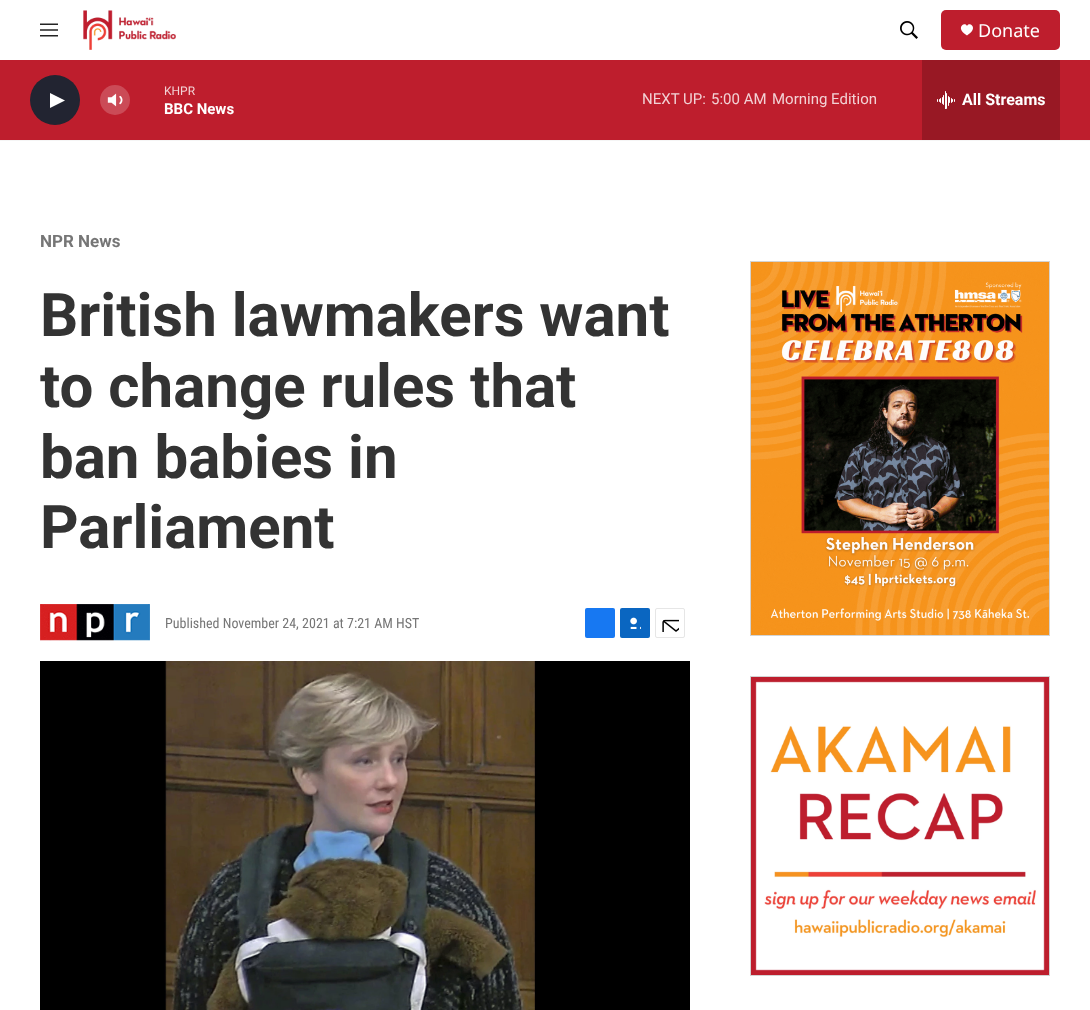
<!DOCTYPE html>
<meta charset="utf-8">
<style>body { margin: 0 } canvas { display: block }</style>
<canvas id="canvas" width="1090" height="1010"></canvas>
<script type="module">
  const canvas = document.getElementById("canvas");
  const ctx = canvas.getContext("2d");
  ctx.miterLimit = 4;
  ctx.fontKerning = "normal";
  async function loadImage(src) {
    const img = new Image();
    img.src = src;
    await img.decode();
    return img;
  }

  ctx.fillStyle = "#ffffff";
  ctx.fillRect(0, 0, 1090, 1010);
  ctx.fillStyle = "#f5f5f5";
  ctx.fillRect(0, 140, 1090, 1);
  ctx.drawImage(await loadImage("img1.png"), 40, 23, 18, 14);
  ctx.drawImage(await loadImage("img2.png"), 83, 10, 93, 40);
  ctx.drawImage(await loadImage("img3.png"), 900, 21, 18, 18);
  ctx.fillStyle = "#be1e2d";
  ctx.beginPath();
  ctx.roundRect(941, 10, 119, 40, 5);
  ctx.fill();
  ctx.fillStyle = "#ffffff";
  ctx.beginPath();
  ctx.moveTo(967, 26);
  ctx.bezierCurveTo(965, 21, 954.5, 28, 967, 35.5);
  ctx.bezierCurveTo(979.5, 28, 969, 21, 967, 26);
  ctx.closePath();
  ctx.fill();
  ctx.font = "18px Noto Sans";
  ctx.fillText("Donate", 978, 37);
  ctx.fillStyle = "#be1e2d";
  ctx.fillRect(0, 60, 1090, 80);
  ctx.fillStyle = "#222431";
  ctx.beginPath();
  ctx.arc(55, 100, 25, 0, Math.PI * 2);
  ctx.fill();
  ctx.fillStyle = "#ffffff";
  ctx.beginPath();
  ctx.moveTo(50, 93);
  ctx.lineTo(65, 100.5);
  ctx.lineTo(50, 108);
  ctx.closePath();
  ctx.fill();
  ctx.drawImage(await loadImage("img4.png"), 107, 93, 16, 14);
  ctx.fillStyle = "rgba(255, 255, 255, 0.2)";
  ctx.beginPath();
  ctx.arc(115, 100, 15, 0, Math.PI * 2);
  ctx.fill();
  ctx.font = "12px Roboto";
  ctx.fillStyle = "#f2d2d5";
  ctx.fillText("KHPR", 164, 95);
  ctx.font = "bold 15px 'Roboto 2'";
  ctx.fillStyle = "#ffffff";
  ctx.fillText("BBC News", 164, 114);
  ctx.font = "15px Roboto";
  ctx.fillStyle = "#f2d2d5";
  ctx.fillText("NEXT UP:", 642, 104);
  ctx.fillText("5:00 AM", 711, 104);
  ctx.fillText("Morning Edition", 772, 104);
  ctx.fillStyle = "#981824";
  ctx.fillRect(922, 60, 138, 80);
  ctx.drawImage(await loadImage("img5.png"), 937, 91, 18, 18);
  ctx.font = "bold 16px 'Roboto 2'";
  ctx.fillStyle = "#ffffff";
  ctx.fillText("All Streams", 962, 105);
  ctx.font = "bold 17px Roboto";
  ctx.fillStyle = "#767676";
  ctx.fillText("NPR News", 40, 247);
  ctx.font = "bold 60px Roboto";
  ctx.fillStyle = "#333333";
  ctx.fillText("British lawmakers want", 40, 336);
  ctx.fillText("to change rules that", 40, 407);
  ctx.fillText("ban babies in", 40, 478);
  ctx.fillText("Parliament", 40, 548);
  ctx.drawImage(await loadImage("img6.png"), 40, 604, 110, 37);
  ctx.font = "14px Roboto Condensed";
  ctx.fillStyle = "#767676";
  ctx.fillText("Published November 24, 2021 at 7:21 AM HST", 165, 628);
  ctx.fillStyle = "#1778f2";
  ctx.beginPath();
  ctx.roundRect(585, 608, 30, 30, 2);
  ctx.fill();
  ctx.fillStyle = "#0a66c1";
  ctx.beginPath();
  ctx.roundRect(620, 608, 30, 30, 2);
  ctx.fill();
  ctx.drawImage(await loadImage("img7.png"), 630, 617, 11, 12);
  ctx.beginPath();
  ctx.roundRect(655.5, 608.5, 29, 29, 1.5);
  ctx.strokeStyle = "#e6e6e6";
  ctx.stroke();
  ctx.drawImage(await loadImage("img8.png"), 662, 619, 17, 13);
  ctx.drawImage(await loadImage("img9.png"), 40, 661, 650, 349);
  ctx.strokeStyle = "#d3d3d3";
  ctx.strokeRect(750.5, 261.5, 299, 374);
  ctx.drawImage(await loadImage("img10.png"), 751, 262, 298, 373);
  ctx.strokeRect(750.5, 676.5, 299, 299);
  ctx.drawImage(await loadImage("img11.png"), 751, 677, 298, 298);
</script>
